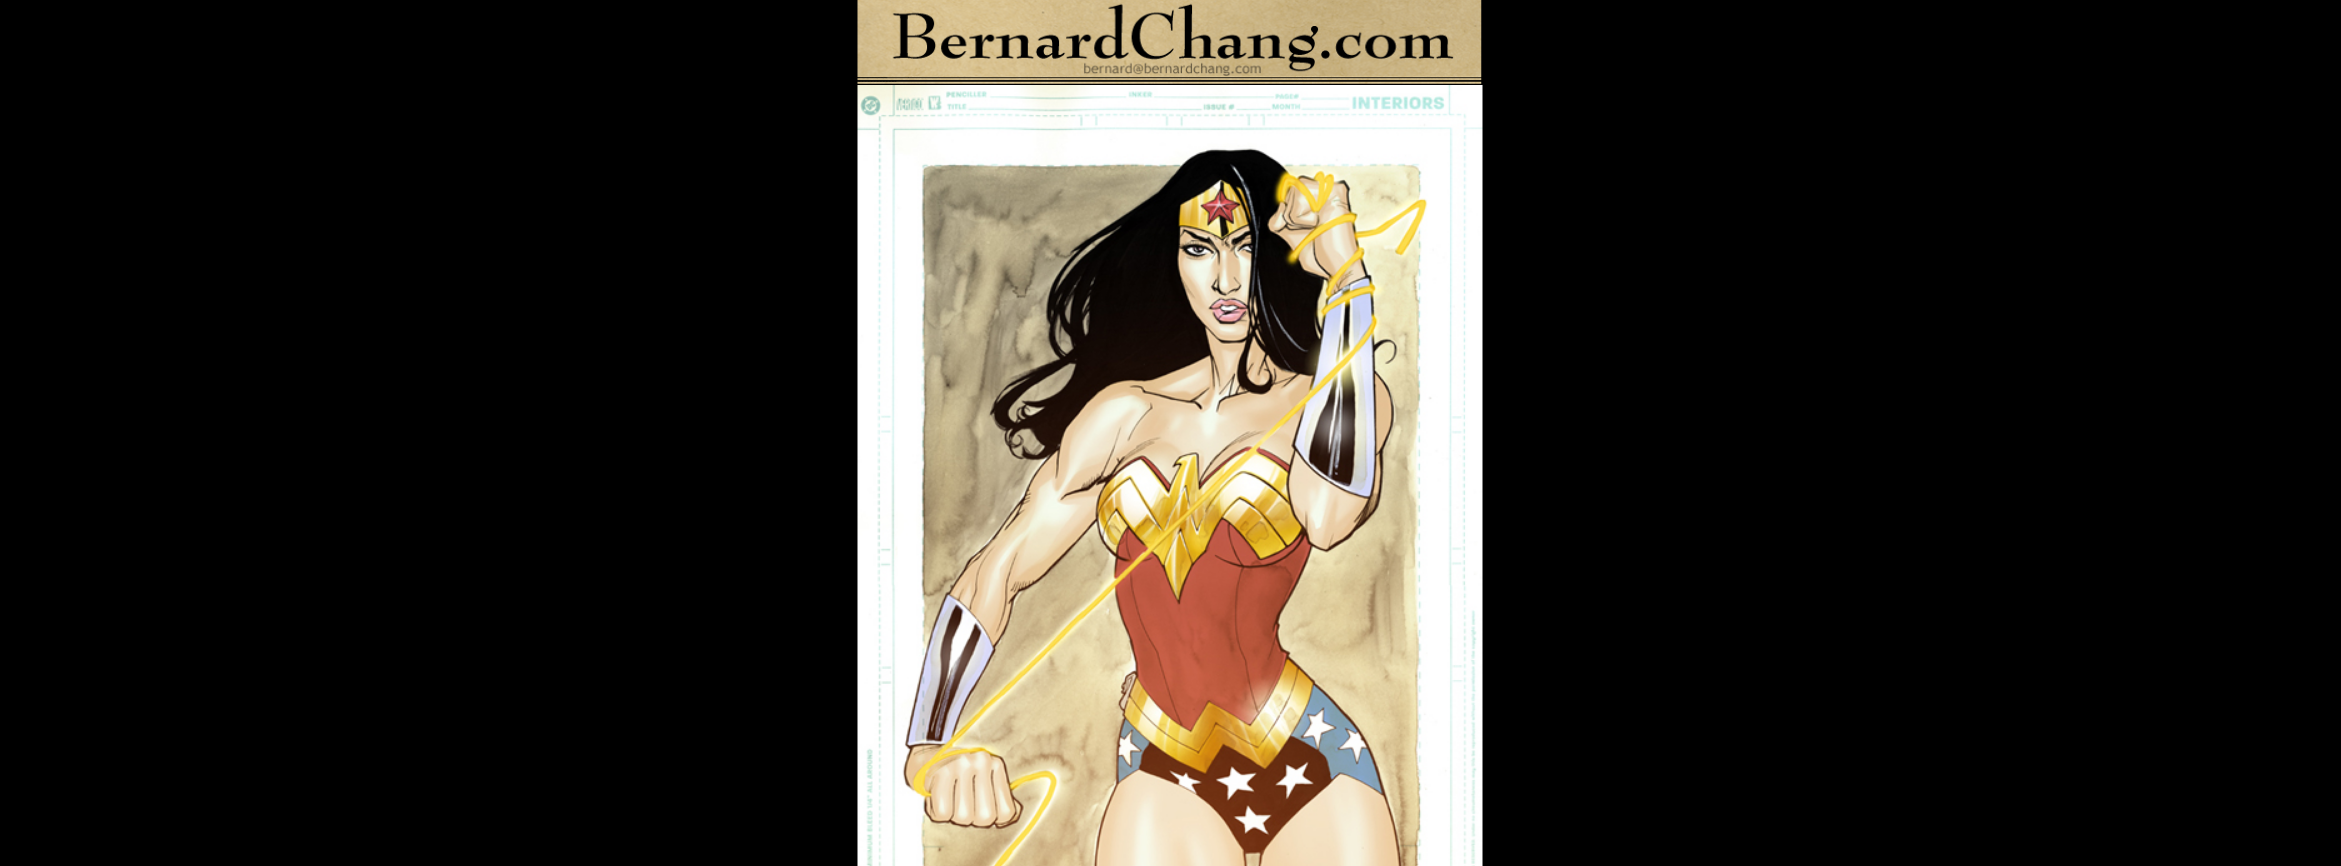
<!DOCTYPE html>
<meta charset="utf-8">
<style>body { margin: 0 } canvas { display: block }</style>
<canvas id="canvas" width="2341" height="866"></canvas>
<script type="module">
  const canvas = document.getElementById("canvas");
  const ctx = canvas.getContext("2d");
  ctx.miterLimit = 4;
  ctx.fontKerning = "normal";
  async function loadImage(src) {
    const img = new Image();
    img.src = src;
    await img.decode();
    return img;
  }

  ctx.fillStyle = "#000000";
  ctx.fillRect(0, 0, 2341, 866);
  ctx.drawImage(await loadImage("img1.png"), 857, 0, 625, 84);
  ctx.drawImage(await loadImage("img2.png"), 857, 85, 626, 781);
</script>
